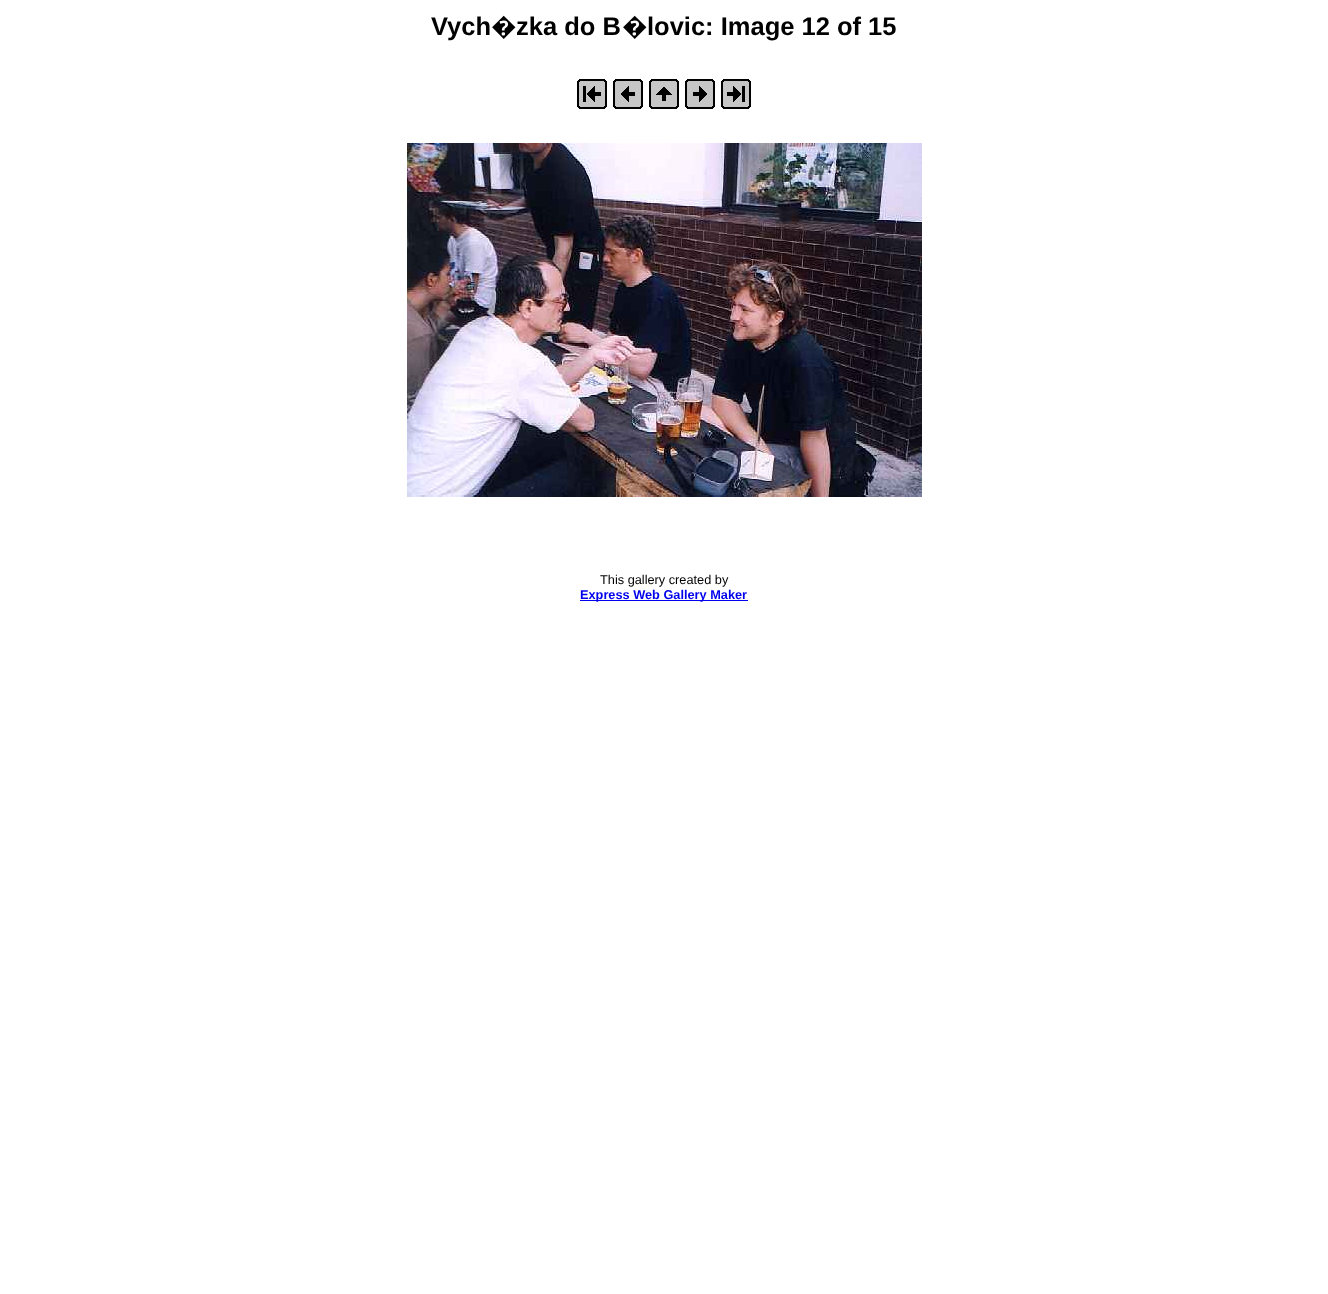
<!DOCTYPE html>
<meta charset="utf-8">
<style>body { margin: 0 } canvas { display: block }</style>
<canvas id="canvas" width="1328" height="1294"></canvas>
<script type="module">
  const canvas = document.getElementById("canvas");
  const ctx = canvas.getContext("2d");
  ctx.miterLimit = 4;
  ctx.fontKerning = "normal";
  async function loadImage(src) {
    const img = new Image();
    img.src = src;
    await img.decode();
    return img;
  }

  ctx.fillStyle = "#ffffff";
  ctx.fillRect(0, 0, 1328, 1294);
  ctx.font = "bold 25.5px Liberation Sans";
  ctx.fillStyle = "#000000";
  ctx.fillText("Vych", 431, 35);
  ctx.font = "bold 25.5px Noto Sans";
  ctx.fillText("�", 491, 35);
  ctx.font = "bold 25.5px Liberation Sans";
  ctx.fillText("zka do B", 516, 35);
  ctx.font = "bold 25.5px Noto Sans";
  ctx.fillText("�", 622, 35);
  ctx.font = "bold 25.5px Liberation Sans";
  ctx.fillText("lovic: Image 12 of 15", 647, 35);
  ctx.drawImage(await loadImage("img1.png"), 577, 79, 30, 30);
  ctx.drawImage(await loadImage("img2.png"), 613, 79, 30, 30);
  ctx.drawImage(await loadImage("img3.png"), 649, 79, 30, 30);
  ctx.drawImage(await loadImage("img4.png"), 685, 79, 30, 30);
  ctx.drawImage(await loadImage("img5.png"), 721, 79, 30, 30);
  ctx.drawImage(await loadImage("img6.png"), 407, 143, 515, 354);
  ctx.font = "12.75px Liberation Sans";
  ctx.fillText("This gallery created by", 600, 584);
  ctx.fillStyle = "#0000ee";
  ctx.fillRect(580, 600, 168, 1);
  ctx.font = "bold 12.75px Liberation Sans";
  ctx.fillText("Express Web Gallery Maker", 580, 599);
</script>
